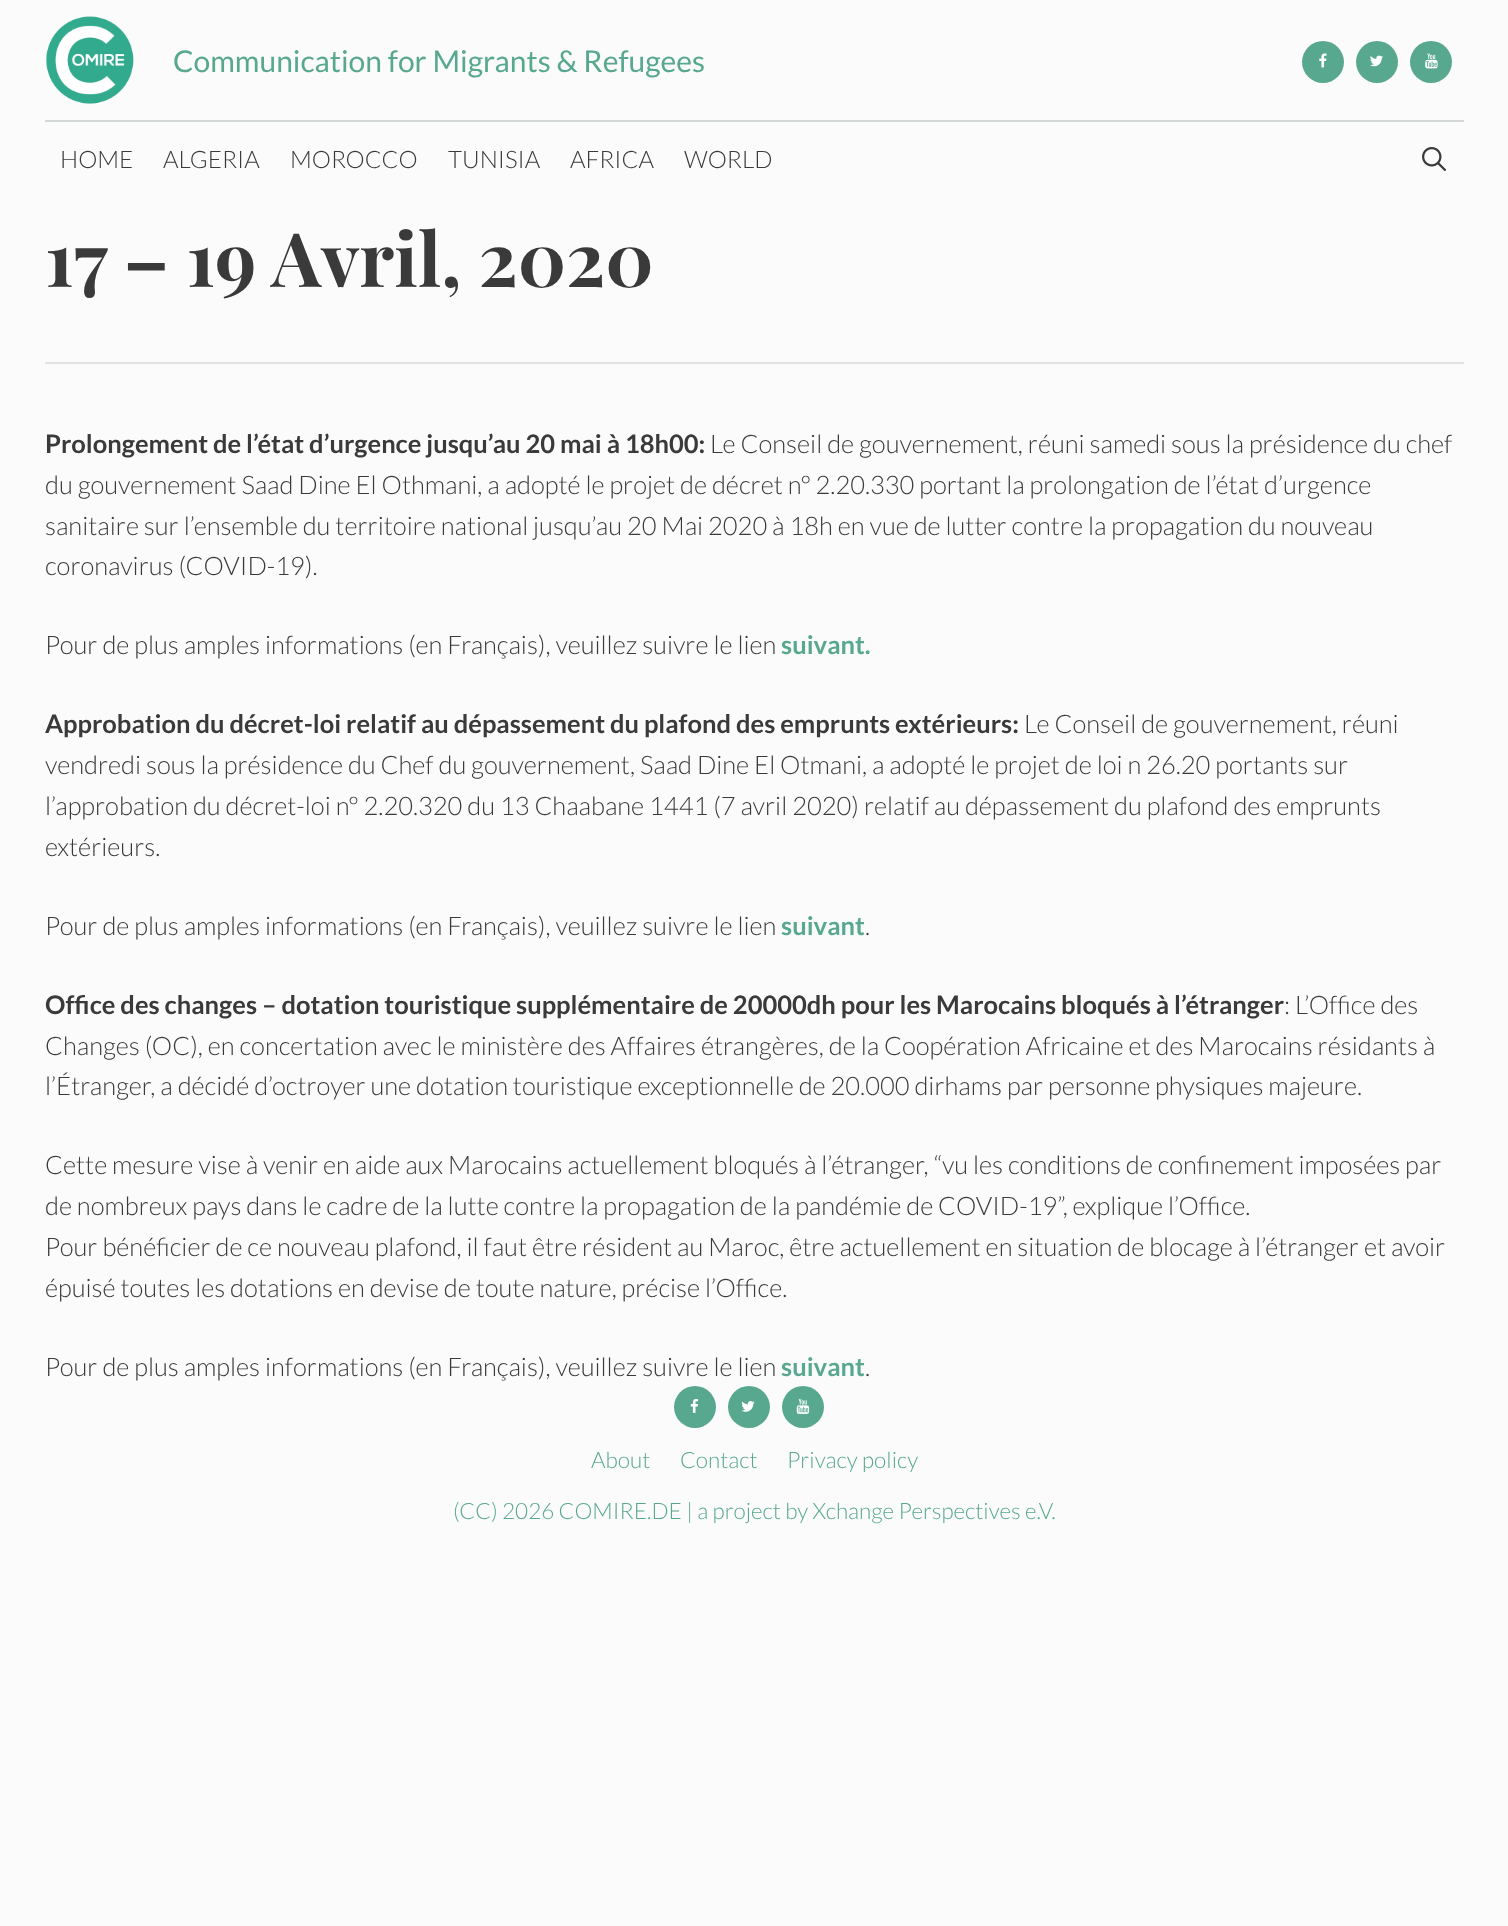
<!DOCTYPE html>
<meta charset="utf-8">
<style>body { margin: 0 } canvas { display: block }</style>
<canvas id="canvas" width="1508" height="1926"></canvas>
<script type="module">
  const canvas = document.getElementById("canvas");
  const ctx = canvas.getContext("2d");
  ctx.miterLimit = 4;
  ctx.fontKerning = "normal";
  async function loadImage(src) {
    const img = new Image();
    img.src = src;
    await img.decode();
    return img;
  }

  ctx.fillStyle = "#fbfbfb";
  ctx.fillRect(0, 0, 1508, 1926);
  ctx.drawImage(await loadImage("img1.png"), 46, 16, 88, 88);
  ctx.font = "30px Lato";
  ctx.fillStyle = "#58a88f";
  ctx.fillText("Communication for Migrants & Refugees", 173, 72);
  ctx.beginPath();
  ctx.arc(1323, 62, 21, 0, Math.PI * 2);
  ctx.fill();
  ctx.drawImage(await loadImage("img2.png"), 1319, 53, 8, 15);
  ctx.beginPath();
  ctx.arc(1377, 62, 21, 0, Math.PI * 2);
  ctx.fill();
  ctx.drawImage(await loadImage("img3.png"), 1370, 55, 13, 12);
  ctx.beginPath();
  ctx.arc(1431, 62, 21, 0, Math.PI * 2);
  ctx.fill();
  ctx.drawImage(await loadImage("img4.png"), 1425, 53, 13, 16);
  ctx.fillStyle = "#d4d7d8";
  ctx.fillRect(45, 120, 1419, 2);
  ctx.font = "300 24px Lato";
  ctx.fillStyle = "#3a3a3a";
  ctx.fillText("HOME", 60, 168);
  ctx.fillText("ALGERIA", 163, 168);
  ctx.fillText("MOROCCO", 290, 168);
  ctx.fillText("TUNISIA", 448, 168);
  ctx.fillText("AFRICA", 570, 168);
  ctx.fillText("WORLD", 684, 168);
  ctx.drawImage(await loadImage("img5.png"), 1422, 147, 24, 24);
  ctx.font = "bold 75px Playfair Display";
  ctx.fillText("17 – 19 Avril, 2020", 45, 287);
  ctx.fillStyle = "#e2e2e2";
  ctx.fillRect(45, 362, 1419, 2);
  ctx.font = "bold 25.5px Lato";
  ctx.fillStyle = "#3a3a3a";
  ctx.fillText("Prolongement de l’état d’urgence jusqu’au 20 mai à 18h00:", 45, 453);
  ctx.font = "300 25.5px Lato";
  ctx.fillText("Le Conseil de gouvernement, réuni samedi sous la présidence du chef", 710, 453);
  ctx.fillText("du gouvernement Saad Dine El Othmani, a adopté le projet de décret n° 2.20.330 portant la prolongation de l’état d’urgence", 45, 494);
  ctx.fillText("sanitaire sur l’ensemble du territoire national jusqu’au 20 Mai 2020 à 18h en vue de lutter contre la propagation du nouveau", 45, 535);
  ctx.fillText("coronavirus (COVID-19).", 45, 575);
  ctx.fillText("Pour de plus amples informations (en Français), veuillez suivre le lien", 45, 654);
  ctx.font = "bold 25.5px Lato";
  ctx.fillStyle = "#58a88f";
  ctx.fillText("suivant.", 781, 654);
  ctx.fillStyle = "#3a3a3a";
  ctx.fillText("Approbation du décret-loi relatif au dépassement du plafond des emprunts extérieurs:", 45, 733);
  ctx.font = "300 25.5px Lato";
  ctx.fillText("Le Conseil de gouvernement, réuni", 1024, 733);
  ctx.fillText("vendredi sous la présidence du Chef du gouvernement, Saad Dine El Otmani, a adopté le projet de loi n 26.20 portants sur", 45, 774);
  ctx.fillText("l’approbation du décret-loi n° 2.20.320 du 13 Chaabane 1441 (7 avril 2020) relatif au dépassement du plafond des emprunts", 45, 815);
  ctx.fillText("extérieurs.", 45, 856);
  ctx.fillText("Pour de plus amples informations (en Français), veuillez suivre le lien", 45, 935);
  ctx.font = "bold 25.5px Lato";
  ctx.fillStyle = "#58a88f";
  ctx.fillText("suivant", 781, 935);
  ctx.font = "300 25.5px Lato";
  ctx.fillStyle = "#3a3a3a";
  ctx.fillText(".", 865, 935);
  ctx.font = "bold 25.5px Lato";
  ctx.fillText("Office des changes – dotation touristique supplémentaire de 20000dh pour les Marocains bloqués à l’étranger", 45, 1014);
  ctx.font = "300 25.5px Lato";
  ctx.fillText(": L’Office des", 1284, 1014);
  ctx.fillText("Changes (OC), en concertation avec le ministère des Affaires étrangères, de la Coopération Africaine et des Marocains résidants à", 45, 1055);
  ctx.fillText("l’Étranger, a décidé d’octroyer une dotation touristique exceptionnelle de 20.000 dirhams par personne physiques majeure.", 45, 1095);
  ctx.fillText("Cette mesure vise à venir en aide aux Marocains actuellement bloqués à l’étranger, “vu les conditions de confinement imposées par", 45, 1174);
  ctx.fillText("de nombreux pays dans le cadre de la lutte contre la propagation de la pandémie de COVID-19”, explique l’Office.", 45, 1215);
  ctx.fillText("Pour bénéficier de ce nouveau plafond, il faut être résident au Maroc, être actuellement en situation de blocage à l’étranger et avoir", 45, 1256);
  ctx.fillText("épuisé toutes les dotations en devise de toute nature, précise l’Office.", 45, 1297);
  ctx.fillText("Pour de plus amples informations (en Français), veuillez suivre le lien", 45, 1376);
  ctx.font = "bold 25.5px Lato";
  ctx.fillStyle = "#58a88f";
  ctx.fillText("suivant", 781, 1376);
  ctx.font = "300 25.5px Lato";
  ctx.fillStyle = "#3a3a3a";
  ctx.fillText(".", 865, 1376);
  ctx.fillStyle = "#58a88f";
  ctx.beginPath();
  ctx.arc(695, 1407, 21, 0, Math.PI * 2);
  ctx.fill();
  ctx.drawImage(await loadImage("img6.png"), 690, 1398, 9, 15);
  ctx.beginPath();
  ctx.arc(749, 1407, 21, 0, Math.PI * 2);
  ctx.fill();
  ctx.drawImage(await loadImage("img7.png"), 741, 1401, 14, 11);
  ctx.beginPath();
  ctx.arc(803, 1407, 21, 0, Math.PI * 2);
  ctx.fill();
  ctx.drawImage(await loadImage("img8.png"), 796, 1398, 14, 16);
  ctx.font = "300 22.5px Lato";
  ctx.fillText("About", 591, 1468);
  ctx.fillText("Contact", 680, 1468);
  ctx.fillText("Privacy policy", 787, 1468);
  ctx.fillText("(CC) 2026 COMIRE.DE | a project by Xchange Perspectives e.V.", 453, 1519);
</script>
